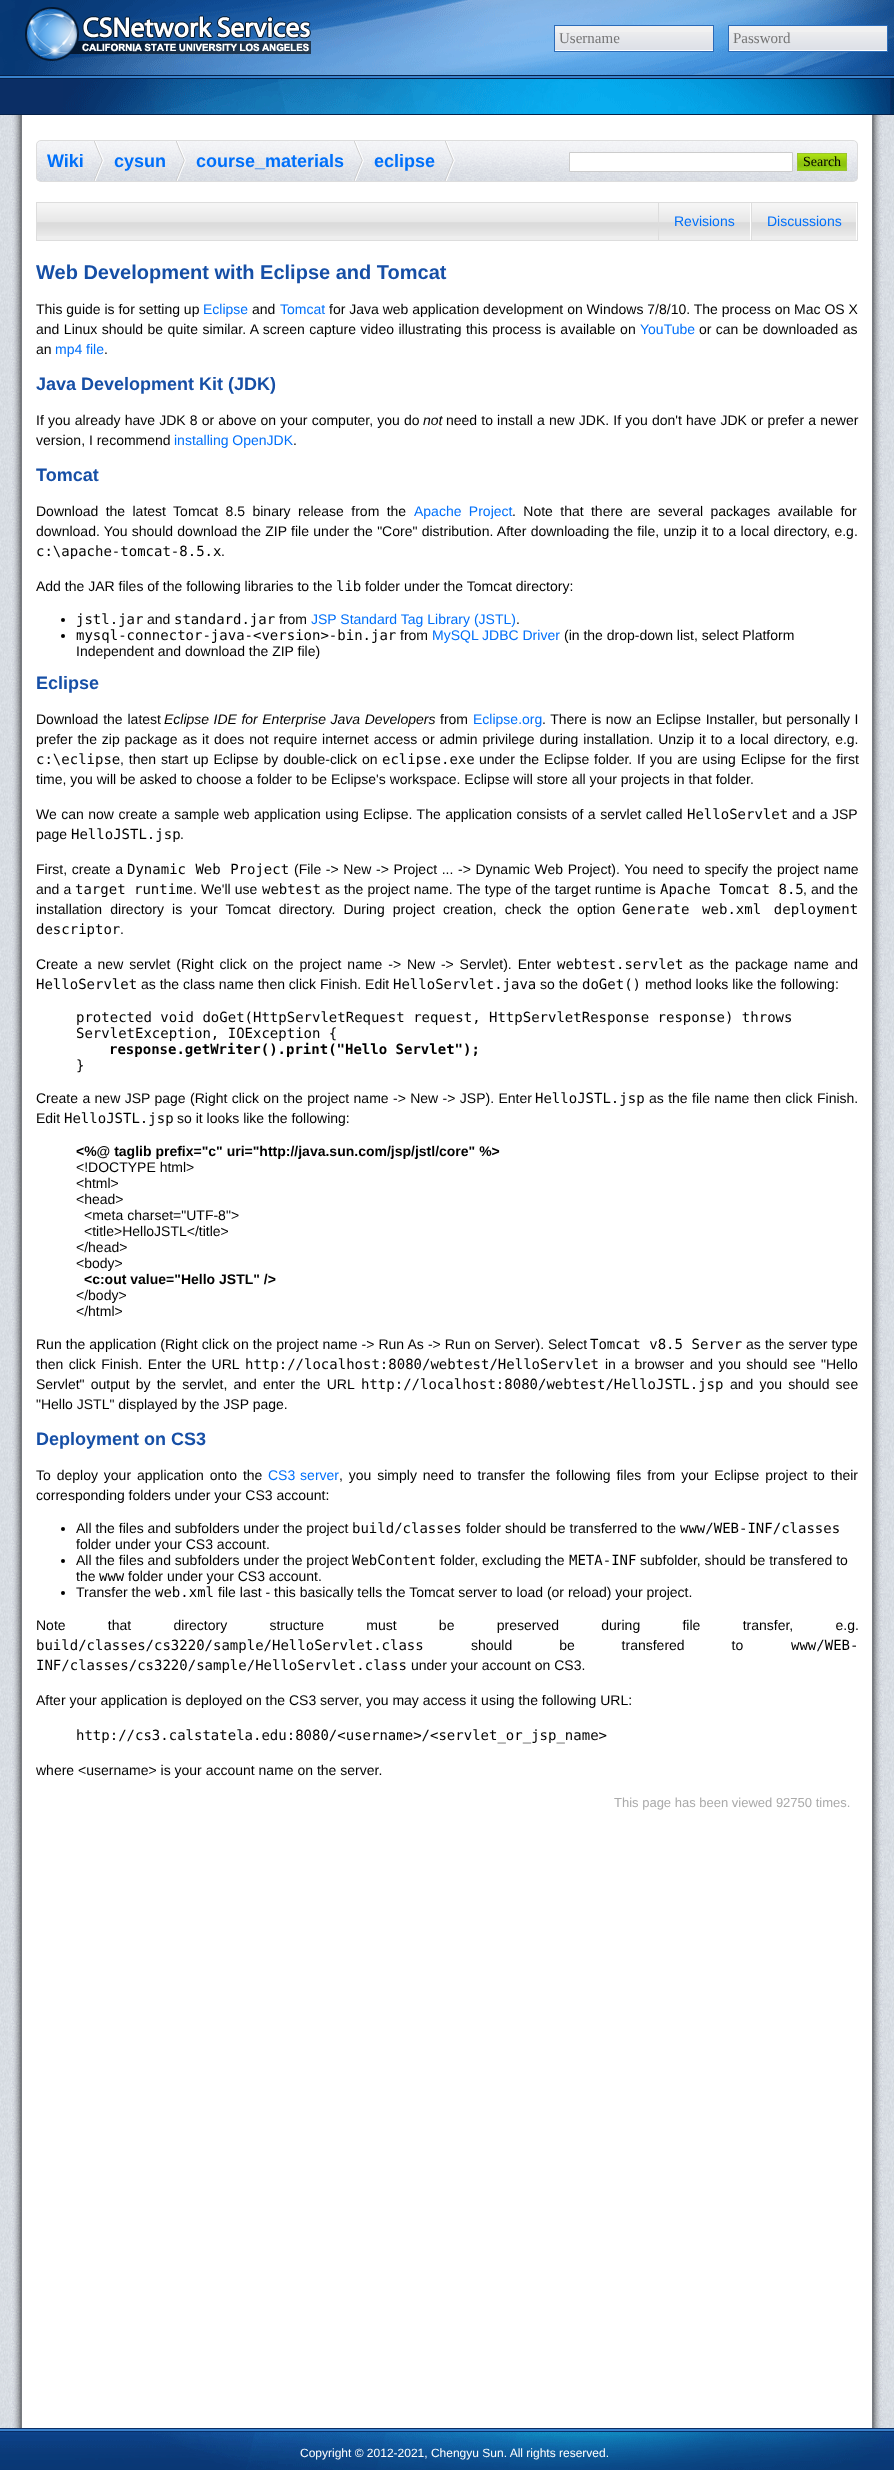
<!DOCTYPE html>
<meta charset="utf-8">
<style>body { margin: 0 } canvas { display: block }</style>
<canvas id="canvas" width="894" height="2470"></canvas>
<script type="module">
  const canvas = document.getElementById("canvas");
  const ctx = canvas.getContext("2d");
  ctx.miterLimit = 4;
  ctx.fontKerning = "normal";
  async function loadImage(src) {
    const img = new Image();
    img.src = src;
    await img.decode();
    return img;
  }

  ctx.fillStyle = "#ffffff";
  ctx.fillRect(0, 0, 894, 2470);
  ctx.drawImage(await loadImage("img1.png"), 0, 0, 894, 79);
  ctx.drawImage(await loadImage("img2.png"), 25, 7, 286, 54);
  ctx.fillStyle = "#f1f1f1";
  ctx.fillRect(555, 26, 158, 6);
  ctx.drawImage(await loadImage("img3.png"), 555, 32, 158, 19);
  ctx.strokeStyle = "#2b6bb8";
  ctx.strokeRect(554.5, 25.5, 159, 26);
  ctx.font = "15px Liberation Serif";
  ctx.fillStyle = "#757575";
  ctx.fillText("Username", 559, 43);
  ctx.fillStyle = "#f1f1f1";
  ctx.fillRect(729, 26, 158, 6);
  ctx.drawImage(await loadImage("img3.png"), 729, 32, 158, 19);
  ctx.strokeRect(728.5, 25.5, 159, 26);
  ctx.fillStyle = "#757575";
  ctx.fillText("Password", 733, 43);
  ctx.fillStyle = "#0b2e65";
  ctx.fillRect(0, 79, 63, 35);
  ctx.fillStyle = "#062148";
  ctx.fillRect(0, 114, 894, 1);
  ctx.drawImage(await loadImage("img4.png"), 63, 79, 831, 35);
  ctx.fillStyle = "rgba(0, 0, 0, 0.2)";
  ctx.fillRect(891, 79, 3, 35);
  ctx.fillStyle = "#0b2e65";
  ctx.fillRect(890, 79, 1, 35);
  ctx.drawImage(await loadImage("img5.png"), 0, 115, 894, 2313);
  ctx.drawImage(await loadImage("img6.png"), 11, 115, 872, 2313);
  ctx.drawImage(await loadImage("img7.png"), 36, 141, 822, 40);
  ctx.beginPath();
  ctx.roundRect(36.5, 140.5, 821, 41, 4.5);
  ctx.strokeStyle = "#dddddd";
  ctx.stroke();
  ctx.drawImage(await loadImage("img8.png"), 94, 141, 10, 40);
  ctx.font = "bold 18px Liberation Sans";
  ctx.fillStyle = "#0070fa";
  ctx.fillText("Wiki", 47, 167);
  ctx.drawImage(await loadImage("img9.png"), 176, 141, 10, 40);
  ctx.fillText("cysun", 114, 167);
  ctx.drawImage(await loadImage("img10.png"), 354, 141, 10, 40);
  ctx.fillText("course_materials", 196, 167);
  ctx.drawImage(await loadImage("img11.png"), 445, 141, 10, 40);
  ctx.fillText("eclipse", 374, 167);
  ctx.fillStyle = "#ffffff";
  ctx.beginPath();
  ctx.rect(569.5, 152.5, 223, 19);
  ctx.fill();
  ctx.strokeStyle = "#cccccc";
  ctx.stroke();
  ctx.drawImage(await loadImage("img12.png"), 798, 154, 48, 16);
  ctx.strokeStyle = "#9cc332";
  ctx.strokeRect(797.5, 153.5, 49, 17);
  ctx.font = "14px Liberation Serif";
  ctx.fillStyle = "#000000";
  ctx.fillText("Search", 803, 166);
  ctx.fillStyle = "#eeeeee";
  ctx.fillRect(37, 236, 819, 4);
  ctx.drawImage(await loadImage("img13.png"), 37, 203, 819, 33);
  ctx.strokeStyle = "#dddddd";
  ctx.strokeRect(36.5, 202.5, 821, 38);
  ctx.fillStyle = "#ffffff";
  ctx.fillRect(750, 203, 1, 37);
  ctx.fillStyle = "#dddddd";
  ctx.fillRect(658, 203, 1, 37);
  ctx.font = "14px Liberation Sans";
  ctx.fillStyle = "#0070fa";
  ctx.fillText("Revisions", 674, 226);
  ctx.fillStyle = "#dddddd";
  ctx.fillRect(751, 203, 1, 37);
  ctx.fillStyle = "#0070fa";
  ctx.fillText("Discussions", 767, 226);
  ctx.font = "bold 20px Liberation Sans";
  ctx.fillStyle = "#164fa6";
  ctx.fillText("Web Development with Eclipse and Tomcat", 36, 279);
  ctx.font = "14px Liberation Sans";
  ctx.fillStyle = "#000000";
  ctx.fillText("This guide is for setting up", 36, 314);
  ctx.fillStyle = "#0070fa";
  ctx.fillText("Eclipse", 203, 314);
  ctx.fillStyle = "#000000";
  ctx.fillText("and", 252, 314);
  ctx.fillStyle = "#0070fa";
  ctx.fillText("Tomcat", 280, 314);
  ctx.fillStyle = "#000000";
  ctx.fillText("for Java web application development on Windows 7/8/10. The process on Mac OS X", 329, 314);
  ctx.wordSpacing = "0.6px";
  ctx.fillText("and Linux should be quite similar. A screen capture video illustrating this process is available on", 36, 334);
  ctx.wordSpacing = "0px";
  ctx.fillStyle = "#0070fa";
  ctx.fillText("YouTube", 640, 334);
  ctx.wordSpacing = "0.5px";
  ctx.fillStyle = "#000000";
  ctx.fillText("or can be downloaded as", 699, 334);
  ctx.wordSpacing = "0px";
  ctx.fillText("an", 36, 354);
  ctx.fillStyle = "#0070fa";
  ctx.fillText("mp4 file", 55, 354);
  ctx.fillStyle = "#000000";
  ctx.fillText(".", 104, 354);
  ctx.font = "bold 18px Liberation Sans";
  ctx.fillStyle = "#164fa6";
  ctx.fillText("Java Development Kit (JDK)", 36, 390);
  ctx.wordSpacing = "0.25px";
  ctx.font = "14px Liberation Sans";
  ctx.fillStyle = "#000000";
  ctx.fillText("If you already have JDK 8 or above on your computer, you do", 36, 425);
  ctx.wordSpacing = "0px";
  ctx.font = "italic 14px Liberation Sans";
  ctx.fillText("not", 423, 425);
  ctx.wordSpacing = "0.25px";
  ctx.font = "14px Liberation Sans";
  ctx.fillText("need to install a new JDK. If you don't have JDK or prefer a newer", 446, 425);
  ctx.wordSpacing = "0px";
  ctx.fillText("version, I recommend", 36, 445);
  ctx.fillStyle = "#0070fa";
  ctx.fillText("installing OpenJDK", 174, 445);
  ctx.fillStyle = "#000000";
  ctx.fillText(".", 293, 445);
  ctx.font = "bold 18px Liberation Sans";
  ctx.fillStyle = "#164fa6";
  ctx.fillText("Tomcat", 36, 481);
  ctx.wordSpacing = "3.5px";
  ctx.font = "14px Liberation Sans";
  ctx.fillStyle = "#000000";
  ctx.fillText("Download the latest Tomcat 8.5 binary release from the", 36, 516);
  ctx.fillStyle = "#0070fa";
  ctx.fillText("Apache Project", 414, 516);
  ctx.fillStyle = "#000000";
  ctx.fillText(". Note that there are several packages available for", 512, 516);
  ctx.wordSpacing = "0.4px";
  ctx.fillText("download. You should download the ZIP file under the \"Core\" distribution. After downloading the file, unzip it to a local directory, e.g.", 36, 536);
  ctx.wordSpacing = "0px";
  ctx.font = "14px DejaVu Sans Mono";
  ctx.fillText("c:\\apache-tomcat-8.5.x", 36, 556);
  ctx.font = "14px Liberation Sans";
  ctx.fillText(".", 221, 556);
  ctx.fillText("Add the JAR files of the following libraries to the", 36, 591);
  ctx.font = "14px DejaVu Sans Mono";
  ctx.fillText("lib", 336, 591);
  ctx.font = "14px Liberation Sans";
  ctx.fillText("folder under the Tomcat directory:", 365, 591);
  ctx.beginPath();
  ctx.arc(63, 620, 2, 0, Math.PI * 2);
  ctx.fill();
  ctx.font = "14px DejaVu Sans Mono";
  ctx.fillText("jstl.jar", 76, 624);
  ctx.font = "14px Liberation Sans";
  ctx.fillText("and", 147, 624);
  ctx.font = "14px DejaVu Sans Mono";
  ctx.fillText("standard.jar", 174, 624);
  ctx.font = "14px Liberation Sans";
  ctx.fillText("from", 279, 624);
  ctx.fillStyle = "#0070fa";
  ctx.fillText("JSP Standard Tag Library (JSTL)", 311, 624);
  ctx.fillStyle = "#000000";
  ctx.fillText(".", 516, 624);
  ctx.beginPath();
  ctx.arc(63, 636, 2, 0, Math.PI * 2);
  ctx.fill();
  ctx.font = "14px DejaVu Sans Mono";
  ctx.fillText("mysql-connector-java-<version>-bin.jar", 76, 640);
  ctx.font = "14px Liberation Sans";
  ctx.fillText("from", 400, 640);
  ctx.fillStyle = "#0070fa";
  ctx.fillText("MySQL JDBC Driver", 432, 640);
  ctx.fillStyle = "#000000";
  ctx.fillText("(in the drop-down list, select Platform", 564, 640);
  ctx.fillText("Independent and download the ZIP file)", 76, 656);
  ctx.font = "bold 18px Liberation Sans";
  ctx.fillStyle = "#164fa6";
  ctx.fillText("Eclipse", 36, 689);
  ctx.wordSpacing = "1px";
  ctx.font = "14px Liberation Sans";
  ctx.fillStyle = "#000000";
  ctx.fillText("Download the latest", 36, 724);
  ctx.wordSpacing = "0.6px";
  ctx.font = "italic 14px Liberation Sans";
  ctx.fillText("Eclipse IDE for Enterprise Java Developers", 164, 724);
  ctx.wordSpacing = "0px";
  ctx.font = "14px Liberation Sans";
  ctx.fillText("from", 440, 724);
  ctx.fillStyle = "#0070fa";
  ctx.fillText("Eclipse.org", 473, 724);
  ctx.wordSpacing = "0.6px";
  ctx.fillStyle = "#000000";
  ctx.fillText(". There is now an Eclipse Installer, but personally I", 542, 724);
  ctx.wordSpacing = "1px";
  ctx.fillText("prefer the zip package as it does not require internet access or admin privilege during installation. Unzip it to a local directory, e.g.", 36, 744);
  ctx.wordSpacing = "0px";
  ctx.font = "14px DejaVu Sans Mono";
  ctx.fillText("c:\\eclipse", 36, 764);
  ctx.wordSpacing = "1px";
  ctx.font = "14px Liberation Sans";
  ctx.fillText(", then start up Eclipse by double-click on", 120, 764);
  ctx.wordSpacing = "0px";
  ctx.font = "14px DejaVu Sans Mono";
  ctx.fillText("eclipse.exe", 382, 764);
  ctx.wordSpacing = "1px";
  ctx.font = "14px Liberation Sans";
  ctx.fillText("under the Eclipse folder. If you are using Eclipse for the first", 479, 764);
  ctx.wordSpacing = "0px";
  ctx.fillText("time, you will be asked to choose a folder to be Eclipse's workspace. Eclipse will store all your projects in that folder.", 36, 784);
  ctx.wordSpacing = "0.6px";
  ctx.fillText("We can now create a sample web application using Eclipse. The application consists of a servlet called", 36, 819);
  ctx.wordSpacing = "0px";
  ctx.font = "14px DejaVu Sans Mono";
  ctx.fillText("HelloServlet", 687, 819);
  ctx.wordSpacing = "0.5px";
  ctx.font = "14px Liberation Sans";
  ctx.fillText("and a JSP", 792, 819);
  ctx.wordSpacing = "0px";
  ctx.fillText("page", 36, 839);
  ctx.font = "14px DejaVu Sans Mono";
  ctx.fillText("HelloJSTL.jsp", 71, 839);
  ctx.font = "14px Liberation Sans";
  ctx.fillText(".", 180, 839);
  ctx.wordSpacing = "0.75px";
  ctx.fillText("First, create a", 36, 874);
  ctx.wordSpacing = "1px";
  ctx.font = "14px DejaVu Sans Mono";
  ctx.fillText("Dynamic Web Project", 127, 874);
  ctx.wordSpacing = "0.75px";
  ctx.font = "14px Liberation Sans";
  ctx.fillText("(File -> New -> Project ... -> Dynamic Web Project). You need to specify the project name", 294, 874);
  ctx.wordSpacing = "0.25px";
  ctx.fillText("and a", 36, 894);
  ctx.wordSpacing = "0px";
  ctx.font = "14px DejaVu Sans Mono";
  ctx.fillText("target runtime", 75, 894);
  ctx.wordSpacing = "0.25px";
  ctx.font = "14px Liberation Sans";
  ctx.fillText(". We'll use", 193, 894);
  ctx.wordSpacing = "0px";
  ctx.font = "14px DejaVu Sans Mono";
  ctx.fillText("webtest", 262, 894);
  ctx.wordSpacing = "0.25px";
  ctx.font = "14px Liberation Sans";
  ctx.fillText("as the project name. The type of the target runtime is", 325, 894);
  ctx.font = "14px DejaVu Sans Mono";
  ctx.fillText("Apache Tomcat 8.5", 660, 894);
  ctx.font = "14px Liberation Sans";
  ctx.fillText(", and the", 803, 894);
  ctx.wordSpacing = "4.25px";
  ctx.fillText("installation directory is your Tomcat directory. During project creation, check the option", 36, 914);
  ctx.font = "14px DejaVu Sans Mono";
  ctx.fillText("Generate web.xml deployment", 622, 914);
  ctx.wordSpacing = "0px";
  ctx.fillText("descriptor", 36, 934);
  ctx.font = "14px Liberation Sans";
  ctx.fillText(".", 120, 934);
  ctx.wordSpacing = "2px";
  ctx.fillText("Create a new servlet (Right click on the project name -> New -> Servlet). Enter", 36, 969);
  ctx.wordSpacing = "0px";
  ctx.font = "14px DejaVu Sans Mono";
  ctx.fillText("webtest.servlet", 557, 969);
  ctx.wordSpacing = "2px";
  ctx.font = "14px Liberation Sans";
  ctx.fillText("as the package name and", 689, 969);
  ctx.wordSpacing = "0px";
  ctx.font = "14px DejaVu Sans Mono";
  ctx.fillText("HelloServlet", 36, 989);
  ctx.font = "14px Liberation Sans";
  ctx.fillText("as the class name then click Finish. Edit", 141, 989);
  ctx.font = "14px DejaVu Sans Mono";
  ctx.fillText("HelloServlet.java", 393, 989);
  ctx.font = "14px Liberation Sans";
  ctx.fillText("so the", 540, 989);
  ctx.font = "14px DejaVu Sans Mono";
  ctx.fillText("doGet()", 582, 989);
  ctx.font = "14px Liberation Sans";
  ctx.fillText("method looks like the following:", 645, 989);
  ctx.font = "14px DejaVu Sans Mono";
  ctx.fillText("protected void doGet(HttpServletRequest request, HttpServletResponse response) throws", 76, 1022);
  ctx.fillText("ServletException, IOException {", 76, 1038);
  ctx.font = "bold 14px DejaVu Sans Mono";
  ctx.fillText("response.getWriter().print(\"Hello Servlet\");", 109, 1054);
  ctx.font = "14px DejaVu Sans Mono";
  ctx.fillText("}", 76, 1070);
  ctx.wordSpacing = "0.5px";
  ctx.font = "14px Liberation Sans";
  ctx.fillText("Create a new JSP page (Right click on the project name -> New -> JSP). Enter", 36, 1103);
  ctx.wordSpacing = "0px";
  ctx.font = "14px DejaVu Sans Mono";
  ctx.fillText("HelloJSTL.jsp", 535, 1103);
  ctx.wordSpacing = "0.5px";
  ctx.font = "14px Liberation Sans";
  ctx.fillText("as the file name then click Finish.", 649, 1103);
  ctx.wordSpacing = "0px";
  ctx.fillText("Edit", 36, 1123);
  ctx.font = "14px DejaVu Sans Mono";
  ctx.fillText("HelloJSTL.jsp", 64, 1123);
  ctx.font = "14px Liberation Sans";
  ctx.fillText("so it looks like the following:", 177, 1123);
  ctx.font = "bold 14px Liberation Sans";
  ctx.fillText("<%@ taglib prefix=\"c\" uri=\"http://java.sun.com/jsp/jstl/core\" %>", 76, 1156);
  ctx.font = "14px Liberation Sans";
  ctx.fillText("<!DOCTYPE html>", 76, 1172);
  ctx.fillText("<html>", 76, 1188);
  ctx.fillText("<head>", 76, 1204);
  ctx.fillText("<meta charset=\"UTF-8\">", 84, 1220);
  ctx.fillText("<title>HelloJSTL<\/title>", 84, 1236);
  ctx.fillText("<\/head>", 76, 1252);
  ctx.fillText("<body>", 76, 1268);
  ctx.font = "bold 14px Liberation Sans";
  ctx.fillText("<c:out value=\"Hello JSTL\" />", 84, 1284);
  ctx.font = "14px Liberation Sans";
  ctx.fillText("<\/body>", 76, 1300);
  ctx.fillText("<\/html>", 76, 1316);
  ctx.wordSpacing = "0.2px";
  ctx.fillText("Run the application (Right click on the project name -> Run As -> Run on Server). Select", 36, 1349);
  ctx.font = "14px DejaVu Sans Mono";
  ctx.fillText("Tomcat v8.5 Server", 590, 1349);
  ctx.font = "14px Liberation Sans";
  ctx.fillText("as the server type", 746, 1349);
  ctx.wordSpacing = "1.5px";
  ctx.fillText("then click Finish. Enter the URL", 36, 1369);
  ctx.wordSpacing = "0px";
  ctx.font = "14px DejaVu Sans Mono";
  ctx.fillText("http://localhost:8080/webtest/HelloServlet", 245, 1369);
  ctx.wordSpacing = "1.5px";
  ctx.font = "14px Liberation Sans";
  ctx.fillText("in a browser and you should see \"Hello", 605, 1369);
  ctx.wordSpacing = "2.25px";
  ctx.fillText("Servlet\" output by the servlet, and enter the URL", 36, 1389);
  ctx.wordSpacing = "0px";
  ctx.font = "14px DejaVu Sans Mono";
  ctx.fillText("http://localhost:8080/webtest/HelloJSTL.jsp", 361, 1389);
  ctx.wordSpacing = "2.25px";
  ctx.font = "14px Liberation Sans";
  ctx.fillText("and you should see", 730, 1389);
  ctx.wordSpacing = "0px";
  ctx.fillText("\"Hello JSTL\" displayed by the JSP page.", 36, 1409);
  ctx.font = "bold 18px Liberation Sans";
  ctx.fillStyle = "#164fa6";
  ctx.fillText("Deployment on CS3", 36, 1445);
  ctx.wordSpacing = "2px";
  ctx.font = "14px Liberation Sans";
  ctx.fillStyle = "#000000";
  ctx.fillText("To deploy your application onto the", 36, 1480);
  ctx.wordSpacing = "1px";
  ctx.fillStyle = "#0070fa";
  ctx.fillText("CS3 server", 268, 1480);
  ctx.wordSpacing = "2px";
  ctx.fillStyle = "#000000";
  ctx.fillText(", you simply need to transfer the following files from your Eclipse project to their", 339, 1480);
  ctx.wordSpacing = "0px";
  ctx.fillText("corresponding folders under your CS3 account:", 36, 1500);
  ctx.beginPath();
  ctx.arc(63, 1529, 2, 0, Math.PI * 2);
  ctx.fill();
  ctx.fillText("All the files and subfolders under the project", 76, 1533);
  ctx.font = "14px DejaVu Sans Mono";
  ctx.fillText("build/classes", 352, 1533);
  ctx.font = "14px Liberation Sans";
  ctx.fillText("folder should be transferred to the", 466, 1533);
  ctx.font = "14px DejaVu Sans Mono";
  ctx.fillText("www/WEB-INF/classes", 680, 1533);
  ctx.font = "14px Liberation Sans";
  ctx.fillText("folder under your CS3 account.", 76, 1549);
  ctx.beginPath();
  ctx.arc(63, 1561, 2, 0, Math.PI * 2);
  ctx.fill();
  ctx.fillText("All the files and subfolders under the project", 76, 1565);
  ctx.font = "14px DejaVu Sans Mono";
  ctx.fillText("WebContent", 352, 1565);
  ctx.font = "14px Liberation Sans";
  ctx.fillText("folder, excluding the", 440, 1565);
  ctx.font = "14px DejaVu Sans Mono";
  ctx.fillText("META-INF", 569, 1565);
  ctx.font = "14px Liberation Sans";
  ctx.fillText("subfolder, should be transfered to", 640, 1565);
  ctx.fillText("the", 76, 1581);
  ctx.font = "14px DejaVu Sans Mono";
  ctx.fillText("www", 99, 1581);
  ctx.font = "14px Liberation Sans";
  ctx.fillText("folder under your CS3 account.", 128, 1581);
  ctx.beginPath();
  ctx.arc(63, 1593, 2, 0, Math.PI * 2);
  ctx.fill();
  ctx.fillText("Transfer the", 76, 1597);
  ctx.font = "14px DejaVu Sans Mono";
  ctx.fillText("web.xml", 155, 1597);
  ctx.font = "14px Liberation Sans";
  ctx.fillText("file last - this basically tells the Tomcat server to load (or reload) your project.", 218, 1597);
  ctx.wordSpacing = "38.4px";
  ctx.fillText("Note that directory structure must be preserved during file transfer, e.g.", 36, 1630);
  ctx.wordSpacing = "0px";
  ctx.font = "14px DejaVu Sans Mono";
  ctx.fillText("build/classes/cs3220/sample/HelloServlet.class", 36, 1650);
  ctx.wordSpacing = "43px";
  ctx.font = "14px Liberation Sans";
  ctx.fillText("should be transfered to", 471, 1650);
  ctx.wordSpacing = "0px";
  ctx.font = "14px DejaVu Sans Mono";
  ctx.fillText("www/WEB-", 791, 1650);
  ctx.fillText("INF/classes/cs3220/sample/HelloServlet.class", 36, 1670);
  ctx.font = "14px Liberation Sans";
  ctx.fillText("under your account on CS3.", 411, 1670);
  ctx.fillText("After your application is deployed on the CS3 server, you may access it using the following URL:", 36, 1705);
  ctx.font = "14px DejaVu Sans Mono";
  ctx.fillText("http://cs3.calstatela.edu:8080/<username>/<servlet_or_jsp_name>", 76, 1740);
  ctx.font = "14px Liberation Sans";
  ctx.fillText("where <username> is your account name on the server.", 36, 1775);
  ctx.font = "13px Liberation Sans";
  ctx.fillStyle = "#aaaaaa";
  ctx.fillText("This page has been viewed 92750 times.", 614, 1807);
  ctx.fillStyle = "#3981cd";
  ctx.fillRect(0, 2429, 894, 2);
  ctx.fillStyle = "#0b2e65";
  ctx.fillRect(0, 2428, 894, 1);
  ctx.fillRect(0, 2431, 894, 1);
  ctx.drawImage(await loadImage("img14.png"), 0, 2432, 894, 38);
  ctx.font = "12px Liberation Sans";
  ctx.fillStyle = "#ffffff";
  ctx.fillText("Copyright © 2012-2021, Chengyu Sun. All rights reserved.", 300, 2457);
</script>
